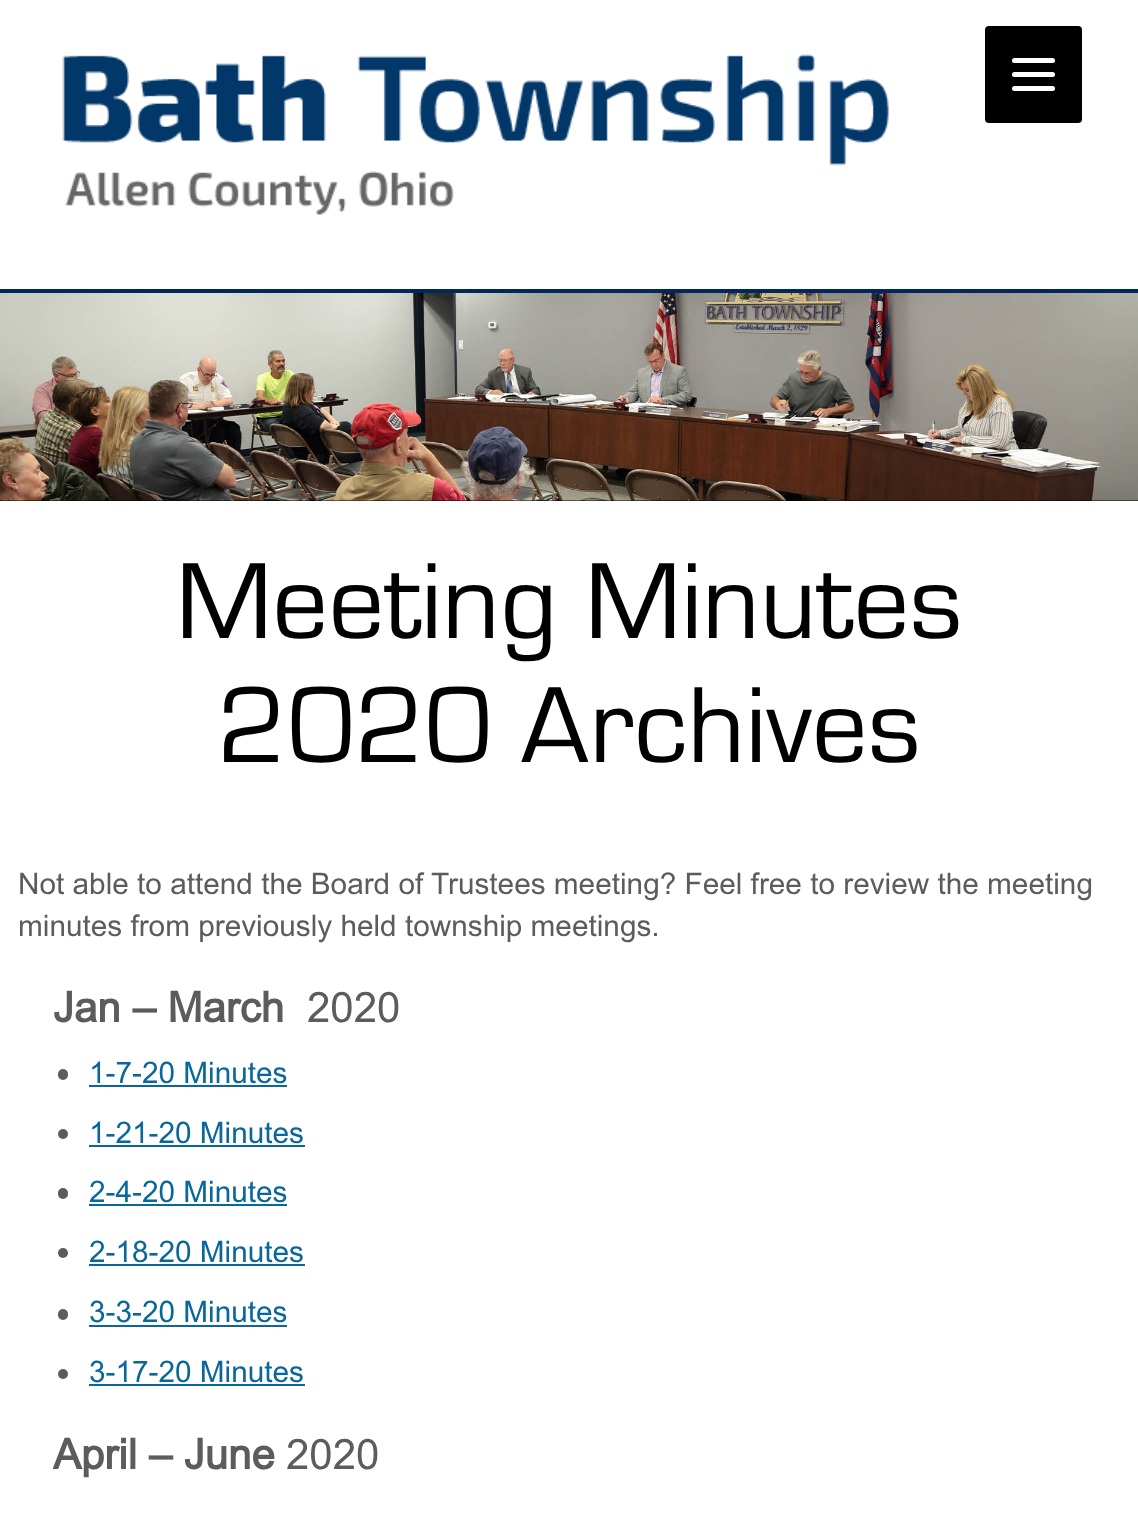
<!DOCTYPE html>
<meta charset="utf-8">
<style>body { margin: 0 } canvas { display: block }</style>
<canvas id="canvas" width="1138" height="1516"></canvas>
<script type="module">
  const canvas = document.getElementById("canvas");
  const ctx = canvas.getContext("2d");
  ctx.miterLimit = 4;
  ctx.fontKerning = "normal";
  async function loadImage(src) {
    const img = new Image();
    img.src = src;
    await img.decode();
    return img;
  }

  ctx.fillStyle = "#ffffff";
  ctx.fillRect(0, 0, 1138, 1516);
  ctx.drawImage(await loadImage("img1.png"), 0, 500, 1138, 1);
  ctx.fillStyle = "#000000";
  ctx.beginPath();
  ctx.roundRect(985, 26, 97, 97, 4);
  ctx.fill();
  ctx.fillStyle = "#ffffff";
  ctx.beginPath();
  ctx.roundRect(1012, 72, 43, 5, 2.5);
  ctx.fill();
  ctx.beginPath();
  ctx.roundRect(1012, 58, 43, 5, 2.5);
  ctx.fill();
  ctx.beginPath();
  ctx.roundRect(1012, 86, 43, 5, 2.5);
  ctx.fill();
  ctx.fillStyle = "#01275b";
  ctx.fillRect(0, 289, 1138, 4);
  ctx.drawImage(await loadImage("img2.png"), 62, 54, 827, 161);
  ctx.drawImage(await loadImage("img3.png"), 0, 293, 1138, 208);
  ctx.font = "112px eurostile";
  ctx.fillStyle = "#000000";
  ctx.fillText("Meeting Minutes", 176, 638);
  ctx.fillText("2020 Archives", 218, 762);
  ctx.font = "29.75px Arial";
  ctx.fillStyle = "#5b5c5c";
  ctx.fillText("Not able to attend the Board of Trustees meeting? Feel free to review the meeting", 18, 894);
  ctx.fillText("minutes from previously held township meetings.", 18, 936);
  ctx.font = "bold 42px Arial";
  ctx.fillText("Jan – March", 53, 1022);
  ctx.font = "42px Arial";
  ctx.fillText("2020", 307, 1022);
  ctx.beginPath();
  ctx.roundRect(58, 1069, 10, 11, 5);
  ctx.fill();
  ctx.font = "29.75px Arial";
  ctx.fillStyle = "#09679a";
  ctx.fillText("1-7-20 Minutes", 89, 1083);
  ctx.fillRect(89, 1085, 198, 2);
  ctx.fillStyle = "#5b5c5c";
  ctx.beginPath();
  ctx.arc(63, 1134, 5, 0, Math.PI * 2);
  ctx.fill();
  ctx.fillStyle = "#09679a";
  ctx.fillText("1-21-20 Minutes", 89, 1143);
  ctx.fillRect(89, 1145, 216, 2);
  ctx.fillStyle = "#5b5c5c";
  ctx.beginPath();
  ctx.roundRect(58, 1188, 10, 11, 5);
  ctx.fill();
  ctx.fillStyle = "#09679a";
  ctx.fillText("2-4-20 Minutes", 89, 1202);
  ctx.fillRect(89, 1204, 198, 2);
  ctx.fillStyle = "#5b5c5c";
  ctx.beginPath();
  ctx.arc(63, 1253, 5, 0, Math.PI * 2);
  ctx.fill();
  ctx.fillStyle = "#09679a";
  ctx.fillText("2-18-20 Minutes", 89, 1262);
  ctx.fillRect(89, 1264, 216, 2);
  ctx.fillStyle = "#5b5c5c";
  ctx.beginPath();
  ctx.roundRect(58, 1309, 10, 11, 5);
  ctx.fill();
  ctx.fillStyle = "#09679a";
  ctx.fillText("3-3-20 Minutes", 89, 1322);
  ctx.fillRect(89, 1325, 198, 2);
  ctx.fillStyle = "#5b5c5c";
  ctx.beginPath();
  ctx.arc(63, 1374, 5, 0, Math.PI * 2);
  ctx.fill();
  ctx.fillStyle = "#09679a";
  ctx.fillText("3-17-20 Minutes", 89, 1382);
  ctx.fillRect(89, 1384, 216, 2);
  ctx.font = "bold 42px Arial";
  ctx.fillStyle = "#5b5c5c";
  ctx.fillText("April – June", 53, 1469);
  ctx.font = "42px Arial";
  ctx.fillText("2020", 286, 1469);
</script>
